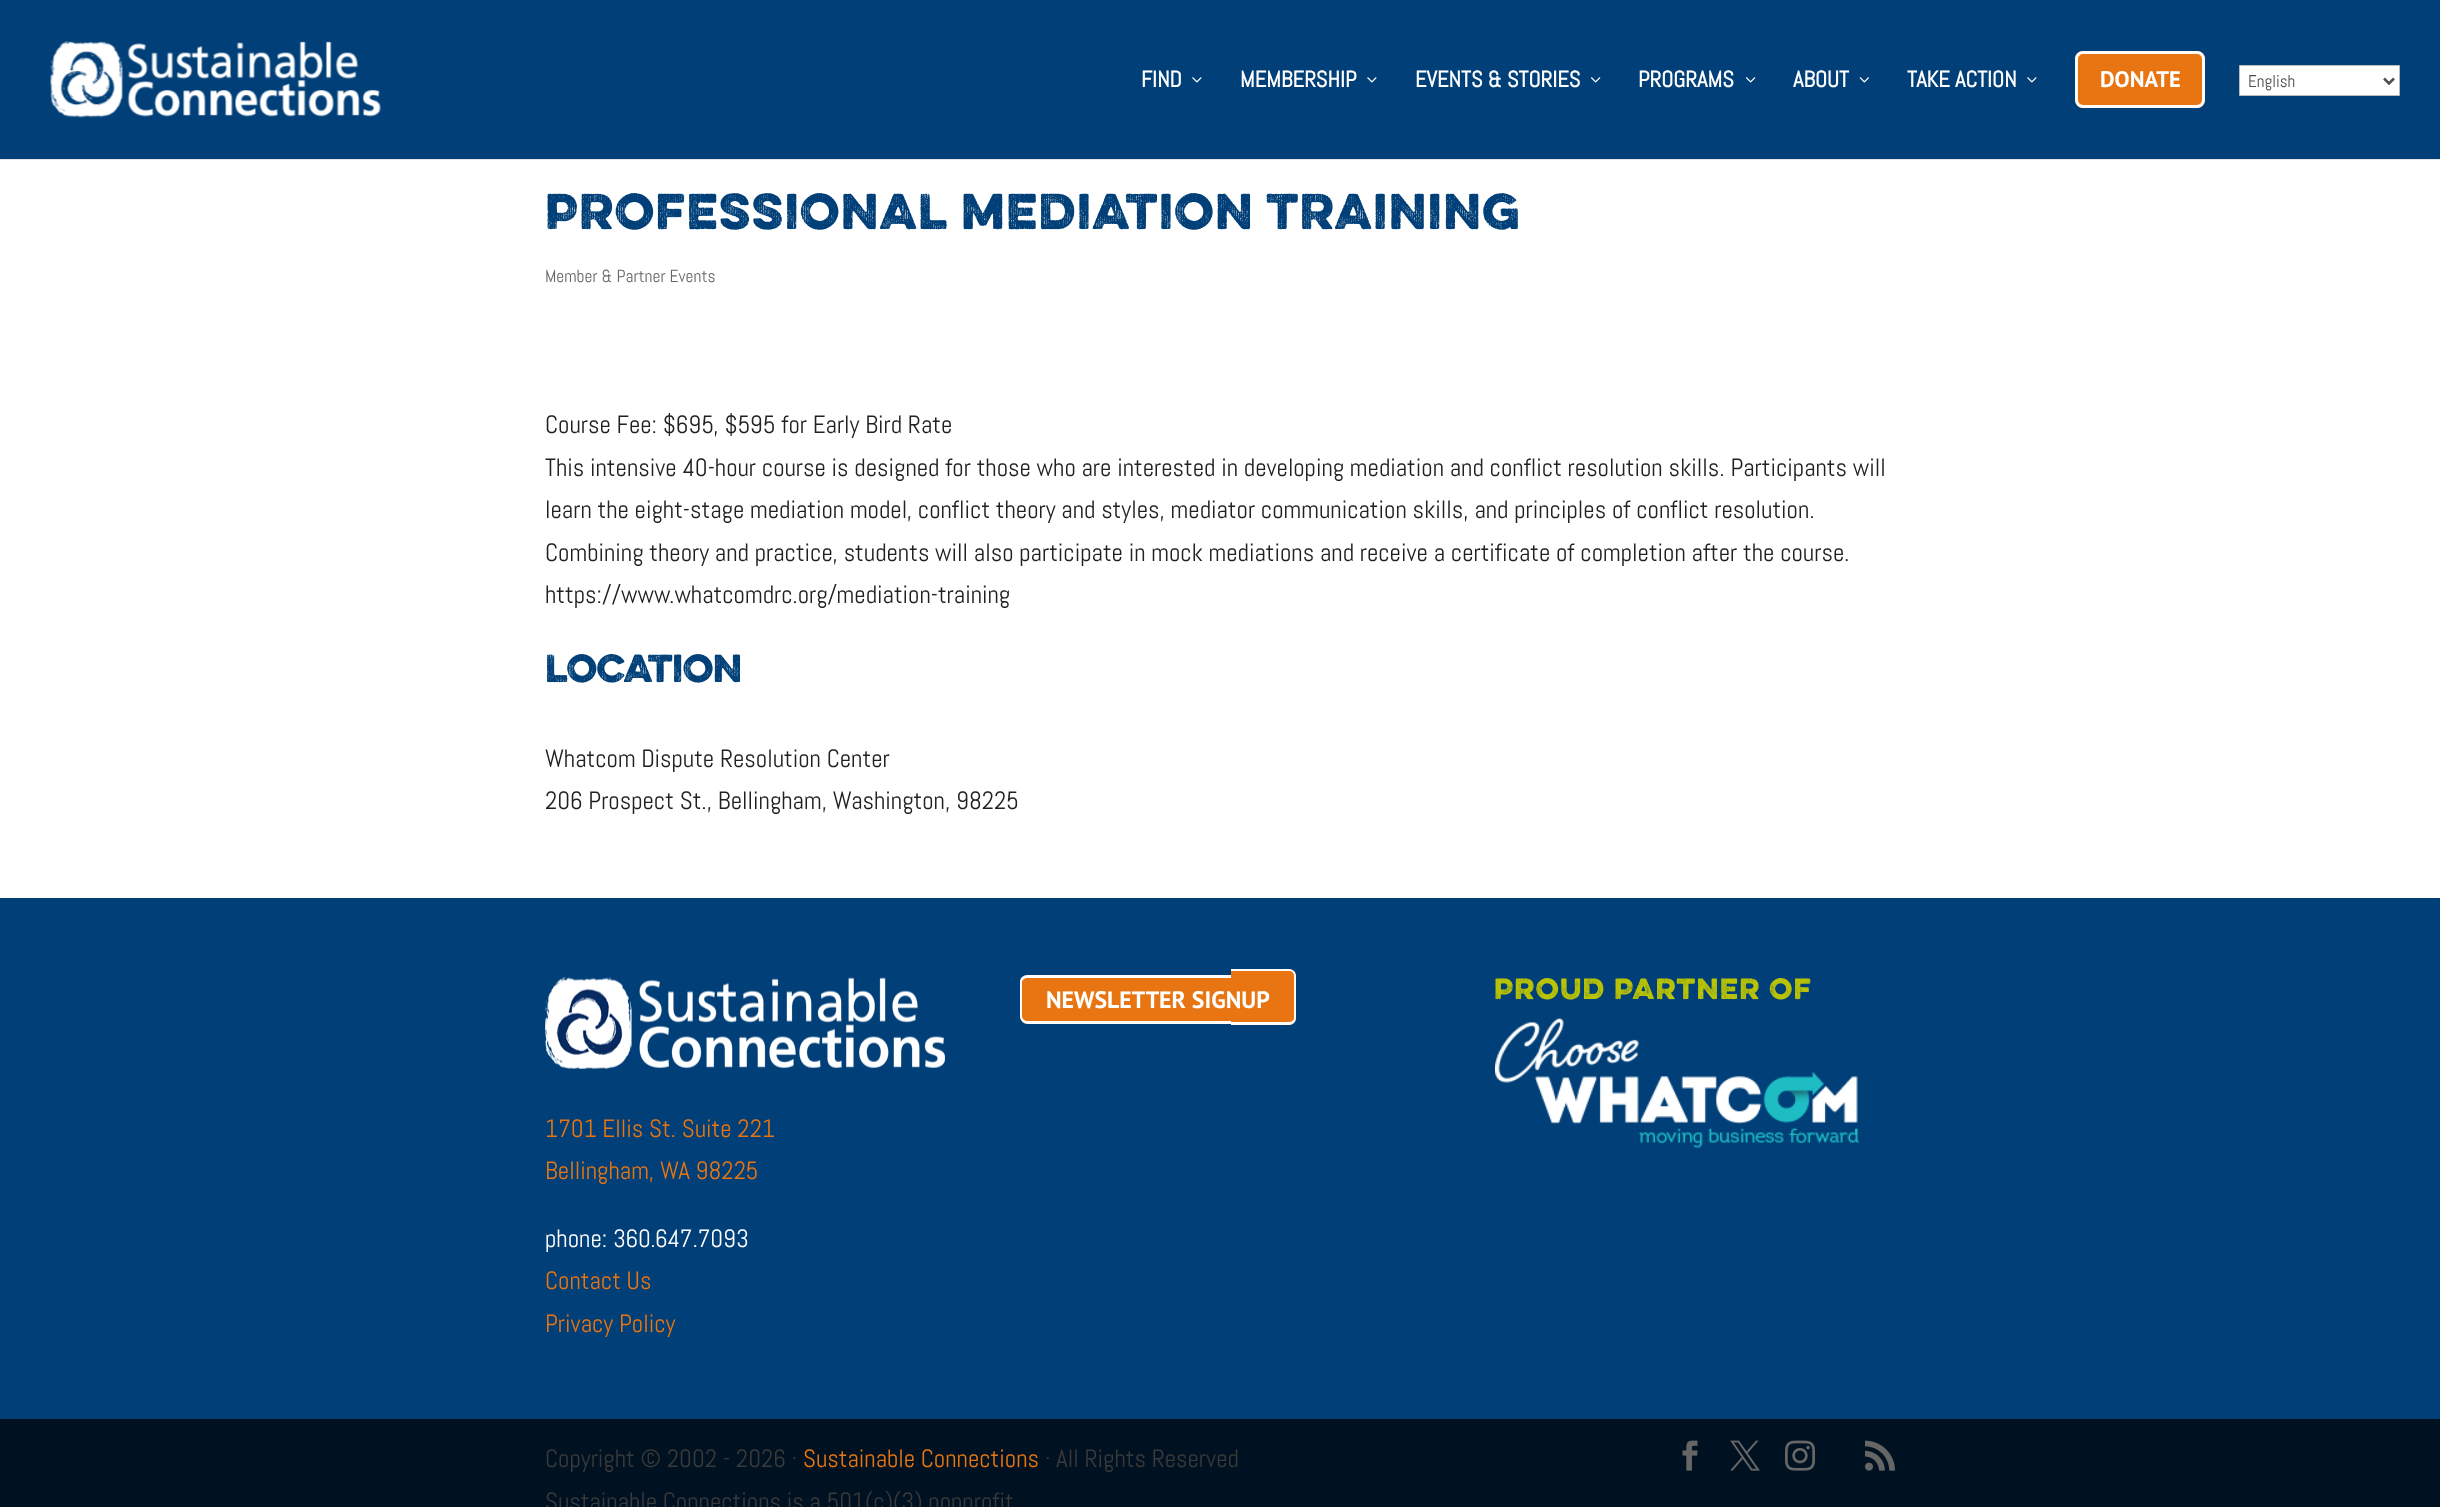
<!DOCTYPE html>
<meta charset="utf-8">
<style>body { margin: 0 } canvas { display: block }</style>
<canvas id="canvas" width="2440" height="1507"></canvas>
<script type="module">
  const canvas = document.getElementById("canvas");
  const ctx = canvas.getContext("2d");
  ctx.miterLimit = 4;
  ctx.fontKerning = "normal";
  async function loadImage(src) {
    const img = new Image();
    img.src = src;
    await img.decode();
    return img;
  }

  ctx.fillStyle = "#ffffff";
  ctx.fillRect(0, 0, 2440, 1507);
  ctx.fillStyle = "#e6e6e6";
  ctx.fillRect(0, 159, 2440, 1);
  ctx.fillStyle = "#003f77";
  ctx.fillRect(0, 0, 2440, 159);
  ctx.drawImage(await loadImage("img1.png"), 50, 41, 331, 77);
  ctx.font = "bold 22.5px Abel";
  ctx.fillStyle = "#ffffff";
  ctx.fillText("FIND", 1141, 87);
  ctx.drawImage(await loadImage("img2.png"), 1192, 77, 10, 6);
  ctx.fillText("MEMBERSHIP", 1240, 87);
  ctx.drawImage(await loadImage("img2.png"), 1367, 77, 10, 6);
  ctx.fillText("EVENTS & STORIES", 1415, 87);
  ctx.drawImage(await loadImage("img3.png"), 1591, 77, 10, 6);
  ctx.fillText("PROGRAMS", 1638, 87);
  ctx.drawImage(await loadImage("img3.png"), 1746, 77, 10, 6);
  ctx.fillText("ABOUT", 1793, 87);
  ctx.drawImage(await loadImage("img4.png"), 1859, 77, 10, 6);
  ctx.fillText("TAKE ACTION", 1907, 87);
  ctx.drawImage(await loadImage("img2.png"), 2027, 77, 10, 6);
  ctx.fillStyle = "#e87511";
  ctx.beginPath();
  ctx.roundRect(2075, 51, 130, 57, 8);
  ctx.fill();
  ctx.beginPath();
  ctx.roundRect(2076.5, 52.5, 127, 54, 6.5);
  ctx.strokeStyle = "rgba(255, 255, 255, 0.99)";
  ctx.lineWidth = 3;
  ctx.stroke();
  ctx.font = "bold 22.5px PT Sans";
  ctx.fillStyle = "#ffffff";
  ctx.fillText("DONATE", 2100, 87);
  ctx.beginPath();
  ctx.rect(2239.5, 65.5, 160, 30);
  ctx.fill();
  ctx.strokeStyle = "#bbbbbb";
  ctx.lineWidth = 1;
  ctx.stroke();
  ctx.beginPath();
  ctx.moveTo(2384, 78.5);
  ctx.lineTo(2389, 83.5);
  ctx.lineTo(2394, 78.5);
  ctx.strokeStyle = "#4e4e4e";
  ctx.lineWidth = 2.5;
  ctx.stroke();
  ctx.font = "17px Abel";
  ctx.fillStyle = "#4e4e4e";
  ctx.fillText("English", 2248, 87);
  ctx.letterSpacing = "1.25px";
  ctx.font = "bold 45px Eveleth";
  ctx.fillStyle = "#003f77";
  ctx.fillText("PROFESSIONAL MEDIATION TRAINING", 545, 229);
  ctx.letterSpacing = "0px";
  ctx.font = "17.5px Abel";
  ctx.fillStyle = "#666666";
  ctx.fillText("Member & Partner Events", 545, 282);
  ctx.font = "25px Abel";
  ctx.fillStyle = "#212121";
  ctx.fillText("Course Fee: $695, $595 for Early Bird Rate", 545, 433);
  ctx.fillText("This intensive 40-hour course is designed for those who are interested in developing mediation and conflict resolution skills. Participants will", 545, 476);
  ctx.fillText("learn the eight-stage mediation model, conflict theory and styles, mediator communication skills, and principles of conflict resolution.", 545, 518);
  ctx.fillText("Combining theory and practice, students will also participate in mock mediations and receive a certificate of completion after the course.", 545, 561);
  ctx.fillText("https://www.whatcomdrc.org/mediation-training", 545, 603);
  ctx.letterSpacing = "-0.5px";
  ctx.font = "bold 35px Eveleth";
  ctx.fillStyle = "#003f77";
  ctx.fillText("LOCATION", 545, 682);
  ctx.letterSpacing = "0px";
  ctx.font = "25px Abel";
  ctx.fillStyle = "#212121";
  ctx.fillText("Whatcom Dispute Resolution Center", 545, 767);
  ctx.fillText("206 Prospect St., Bellingham, Washington, 98225", 545, 809);
  ctx.fillStyle = "#003f77";
  ctx.fillRect(0, 898, 2440, 521);
  ctx.fillStyle = "#e87511";
  ctx.beginPath();
  ctx.roundRect(1020, 975, 250, 49, [8, 0, 0, 8]);
  ctx.fill();
  ctx.fillStyle = "rgba(255, 255, 255, 0.99)";
  ctx.beginPath();
  ctx.moveTo(1028, 975);
  ctx.lineTo(1270, 975);
  ctx.lineTo(1270, 1024);
  ctx.lineTo(1028, 1024);
  ctx.bezierCurveTo(1023, 1024, 1020, 1020, 1020, 1016);
  ctx.lineTo(1020, 982);
  ctx.bezierCurveTo(1020, 978, 1023, 975, 1028, 975);
  ctx.closePath();
  ctx.moveTo(1028, 978);
  ctx.lineTo(1270, 978);
  ctx.lineTo(1270, 1021);
  ctx.lineTo(1028, 1021);
  ctx.bezierCurveTo(1025, 1021, 1022, 1019, 1022, 1016);
  ctx.lineTo(1022, 982);
  ctx.bezierCurveTo(1022, 980, 1025, 978, 1028, 978);
  ctx.closePath();
  ctx.fill("evenodd");
  ctx.fillStyle = "#e87511";
  ctx.beginPath();
  ctx.roundRect(1231, 969, 65, 56, [0, 8, 8, 0]);
  ctx.fill();
  ctx.fillStyle = "rgba(255, 255, 255, 0.99)";
  ctx.beginPath();
  ctx.moveTo(1231, 969);
  ctx.lineTo(1289, 969);
  ctx.bezierCurveTo(1293, 969, 1296, 972, 1296, 976);
  ctx.lineTo(1296, 1018);
  ctx.bezierCurveTo(1296, 1022, 1293, 1025, 1289, 1025);
  ctx.lineTo(1231, 1025);
  ctx.closePath();
  ctx.moveTo(1231, 971);
  ctx.lineTo(1289, 971);
  ctx.bezierCurveTo(1292, 971, 1294, 973, 1294, 976);
  ctx.lineTo(1294, 1018);
  ctx.bezierCurveTo(1294, 1020, 1292, 1022, 1289, 1022);
  ctx.lineTo(1231, 1022);
  ctx.closePath();
  ctx.fill("evenodd");
  ctx.font = "bold 23.75px PT Sans";
  ctx.fillStyle = "#ffffff";
  ctx.fillText("NEWSLETTER SIGNUP", 1046, 1008);
  ctx.letterSpacing = "1.25px";
  ctx.font = "bold 26.25px Eveleth";
  ctx.fillStyle = "#bac405";
  ctx.fillText("PROUD PARTNER OF", 1494, 999);
  ctx.drawImage(await loadImage("img5.png"), 1495, 1018, 364, 130);
  ctx.drawImage(await loadImage("img6.png"), 545, 977, 400, 92);
  ctx.letterSpacing = "0px";
  ctx.font = "25px Abel";
  ctx.fillStyle = "#e87511";
  ctx.fillText("1701 Ellis St. Suite 221", 545, 1137);
  ctx.fillText("Bellingham, WA 98225", 545, 1179);
  ctx.fillStyle = "#ffffff";
  ctx.fillText("phone: 360.647.7093", 545, 1247);
  ctx.fillStyle = "#e87511";
  ctx.fillText("Contact Us", 545, 1289);
  ctx.fillText("Privacy Policy", 545, 1332);
  ctx.fillStyle = "#001221";
  ctx.fillRect(0, 1419, 2440, 88);
  ctx.fillStyle = "#3a3a3a";
  ctx.fillText("Copyright © 2002 - 2026 ·", 545, 1467);
  ctx.fillStyle = "#e87511";
  ctx.fillText("Sustainable Connections", 803, 1467);
  ctx.fillStyle = "#3a3a3a";
  ctx.fillText("· All Rights Reserved", 1045, 1467);
  ctx.fillText("Sustainable Connections is a 501(c)(3) nonprofit", 545, 1510);
  ctx.drawImage(await loadImage("img7.png"), 1682, 1440, 16, 31);
  ctx.drawImage(await loadImage("img8.png"), 1730, 1440, 30, 31);
  ctx.drawImage(await loadImage("img9.png"), 1785, 1440, 30, 31);
  ctx.drawImage(await loadImage("img10.png"), 1865, 1440, 30, 31);
</script>
